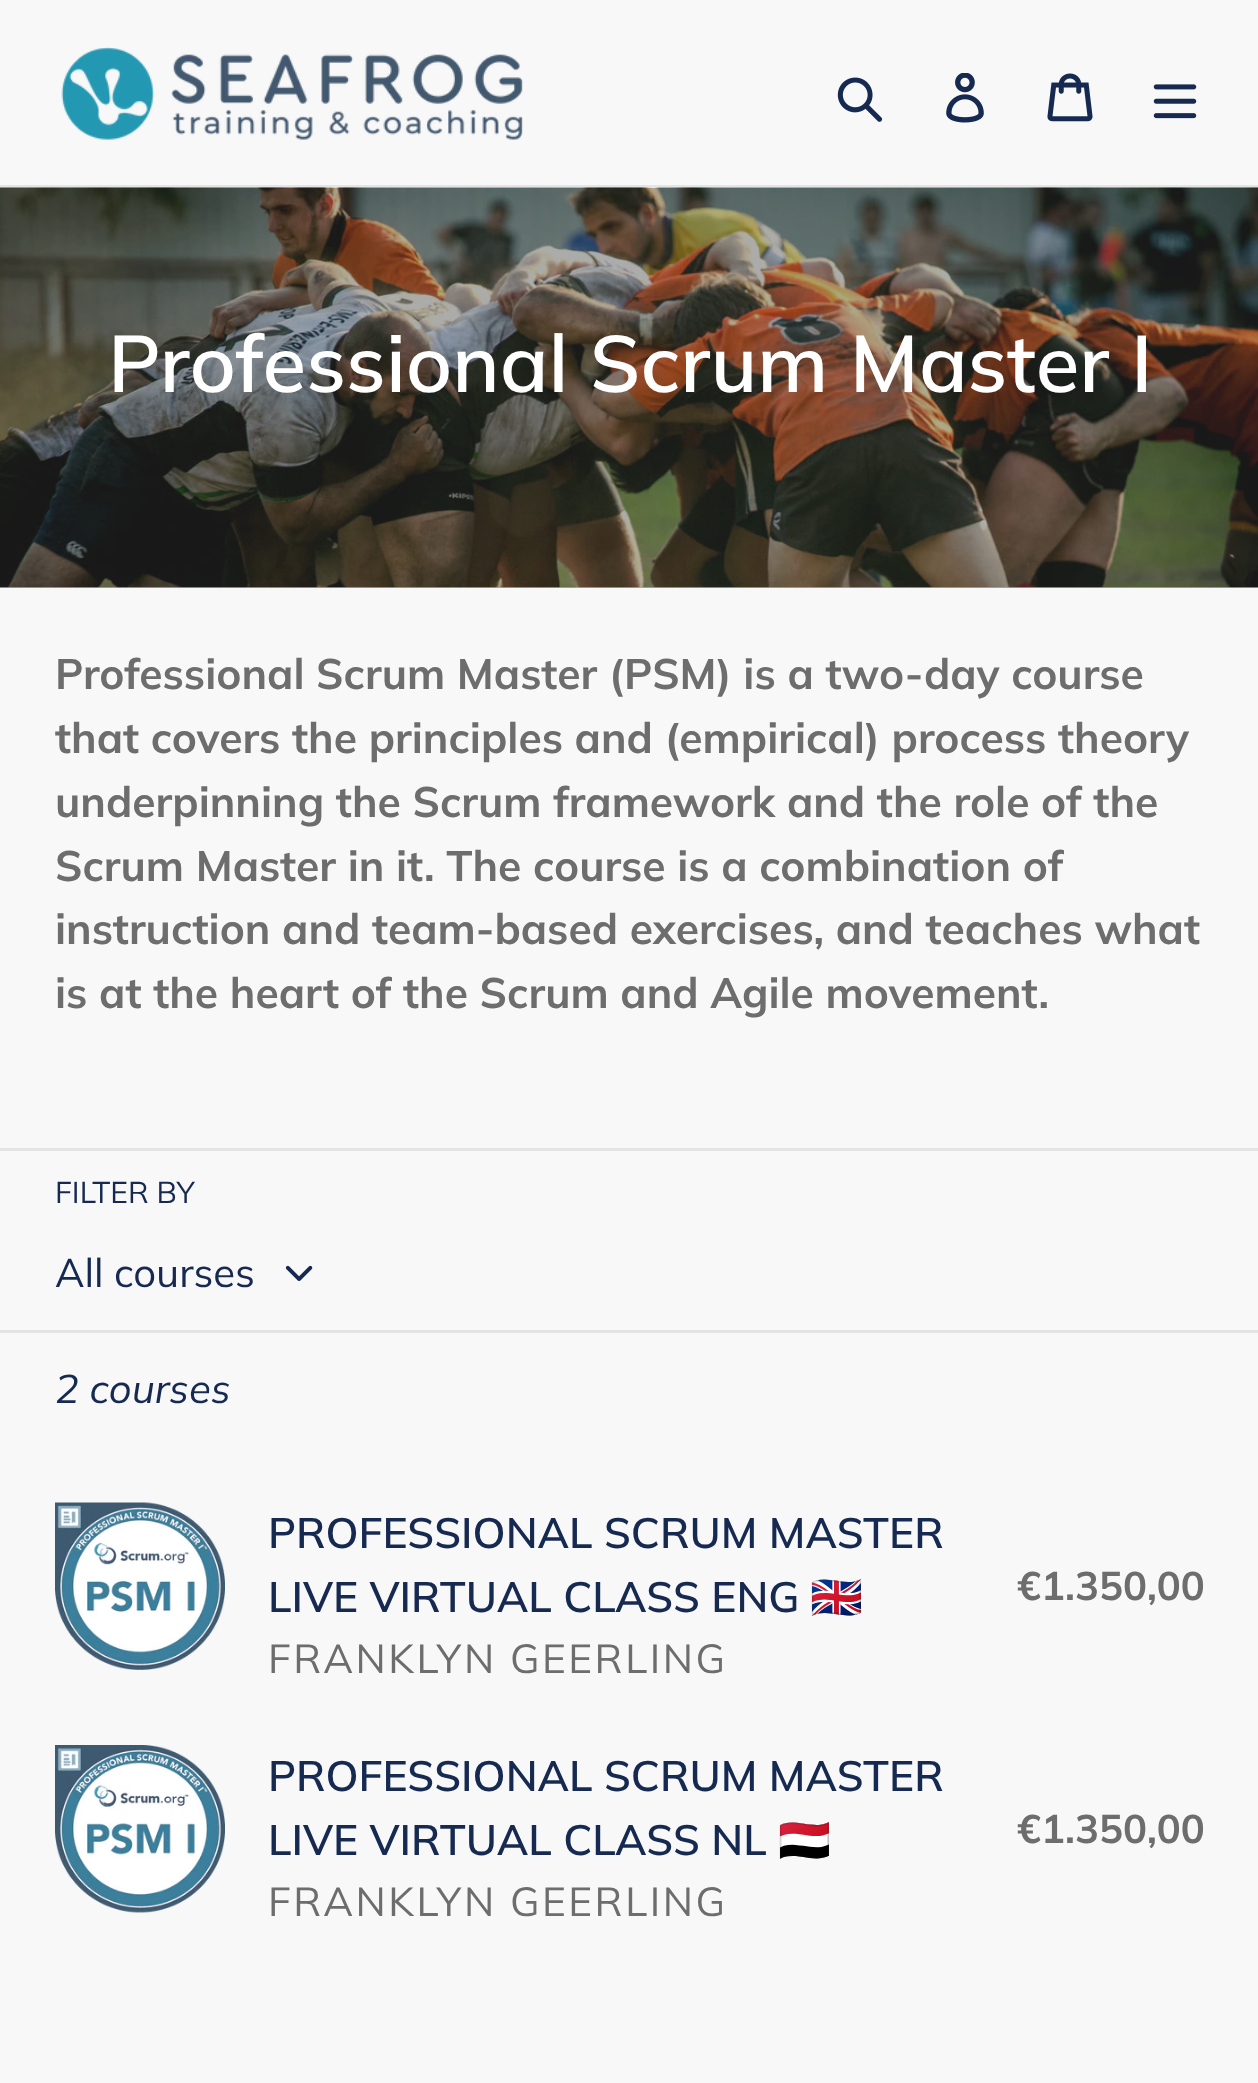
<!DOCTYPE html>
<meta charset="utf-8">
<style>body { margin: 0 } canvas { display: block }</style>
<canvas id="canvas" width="1258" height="2083"></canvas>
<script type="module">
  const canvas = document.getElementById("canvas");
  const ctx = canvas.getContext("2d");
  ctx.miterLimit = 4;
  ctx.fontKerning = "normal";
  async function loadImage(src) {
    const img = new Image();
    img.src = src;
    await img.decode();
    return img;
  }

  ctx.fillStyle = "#f8f8f8";
  ctx.fillRect(0, 0, 1258, 2083);
  ctx.fillStyle = "#adadad";
  ctx.fillRect(0, 587, 1258, 1);
  ctx.fillStyle = "#e4e4e4";
  ctx.fillRect(0, 185, 1258, 3);
  ctx.drawImage(await loadImage("img1.png"), 61, 47, 462, 93);
  ctx.drawImage(await loadImage("img2.png"), 837, 77, 46, 45);
  ctx.drawImage(await loadImage("img3.png"), 946, 73, 38, 50);
  ctx.drawImage(await loadImage("img4.png"), 1047, 73, 46, 49);
  ctx.drawImage(await loadImage("img5.png"), 1153, 84, 44, 35);
  ctx.drawImage(await loadImage("img6.png"), 0, 187, 1258, 401);
  ctx.font = "600 80px Muli";
  ctx.fillStyle = "#ffffff";
  ctx.fillText("Professional Scrum Master I", 108, 392);
  ctx.font = "bold 42.5px Muli";
  ctx.fillStyle = "#6d6d6d";
  ctx.fillText("Professional Scrum Master (PSM) is a two-day course", 55, 689);
  ctx.fillText("that covers the principles and (empirical) process theory", 55, 753);
  ctx.fillText("underpinning the Scrum framework and the role of the", 55, 817);
  ctx.fillText("Scrum Master in it. The course is a combination of", 55, 881);
  ctx.fillText("instruction and team-based exercises, and teaches what", 55, 944);
  ctx.fillText("is at the heart of the Scrum and Agile movement.", 55, 1008);
  ctx.fillStyle = "#e4e4e4";
  ctx.fillRect(0, 1148, 1258, 3);
  ctx.font = "30px Muli";
  ctx.fillStyle = "#162950";
  ctx.fillText("FILTER BY", 55, 1203);
  ctx.font = "40px Muli";
  ctx.fillText("All courses", 55, 1287);
  ctx.drawImage(await loadImage("img7.png"), 285, 1265, 28, 16);
  ctx.fillStyle = "#e4e4e4";
  ctx.fillRect(0, 1330, 1258, 3);
  ctx.font = "italic 40px Muli";
  ctx.fillStyle = "#162950";
  ctx.fillText("2 courses", 55, 1403);
  ctx.drawImage(await loadImage("img8.png"), 55, 1502, 170, 168);
  ctx.font = "600 42.5px Muli";
  ctx.fillText("PROFESSIONAL SCRUM MASTER", 268, 1548);
  ctx.fillText("LIVE VIRTUAL CLASS ENG", 268, 1612);
  ctx.font = "bold 42.5px Noto Color Emoji";
  ctx.fillText("🇬🇧", 810, 1612);
  ctx.letterSpacing = "2.5px";
  ctx.font = "40.5px Muli";
  ctx.fillStyle = "#6d6d6d";
  ctx.fillText("FRANKLYN GEERLING", 268, 1673);
  ctx.letterSpacing = "0px";
  ctx.font = "bold 40px Muli";
  ctx.fillText("€1.350,00", 1017, 1600);
  ctx.drawImage(await loadImage("img9.png"), 55, 1745, 170, 168);
  ctx.font = "600 42.5px Muli";
  ctx.fillStyle = "#162950";
  ctx.fillText("PROFESSIONAL SCRUM MASTER", 268, 1791);
  ctx.fillText("LIVE VIRTUAL CLASS NL", 268, 1855);
  ctx.font = "bold 42.5px Noto Color Emoji";
  ctx.fillText("🇾🇪", 778, 1855);
  ctx.letterSpacing = "2.5px";
  ctx.font = "40.5px Muli";
  ctx.fillStyle = "#6d6d6d";
  ctx.fillText("FRANKLYN GEERLING", 268, 1916);
  ctx.letterSpacing = "0px";
  ctx.font = "bold 40px Muli";
  ctx.fillText("€1.350,00", 1017, 1843);
</script>
